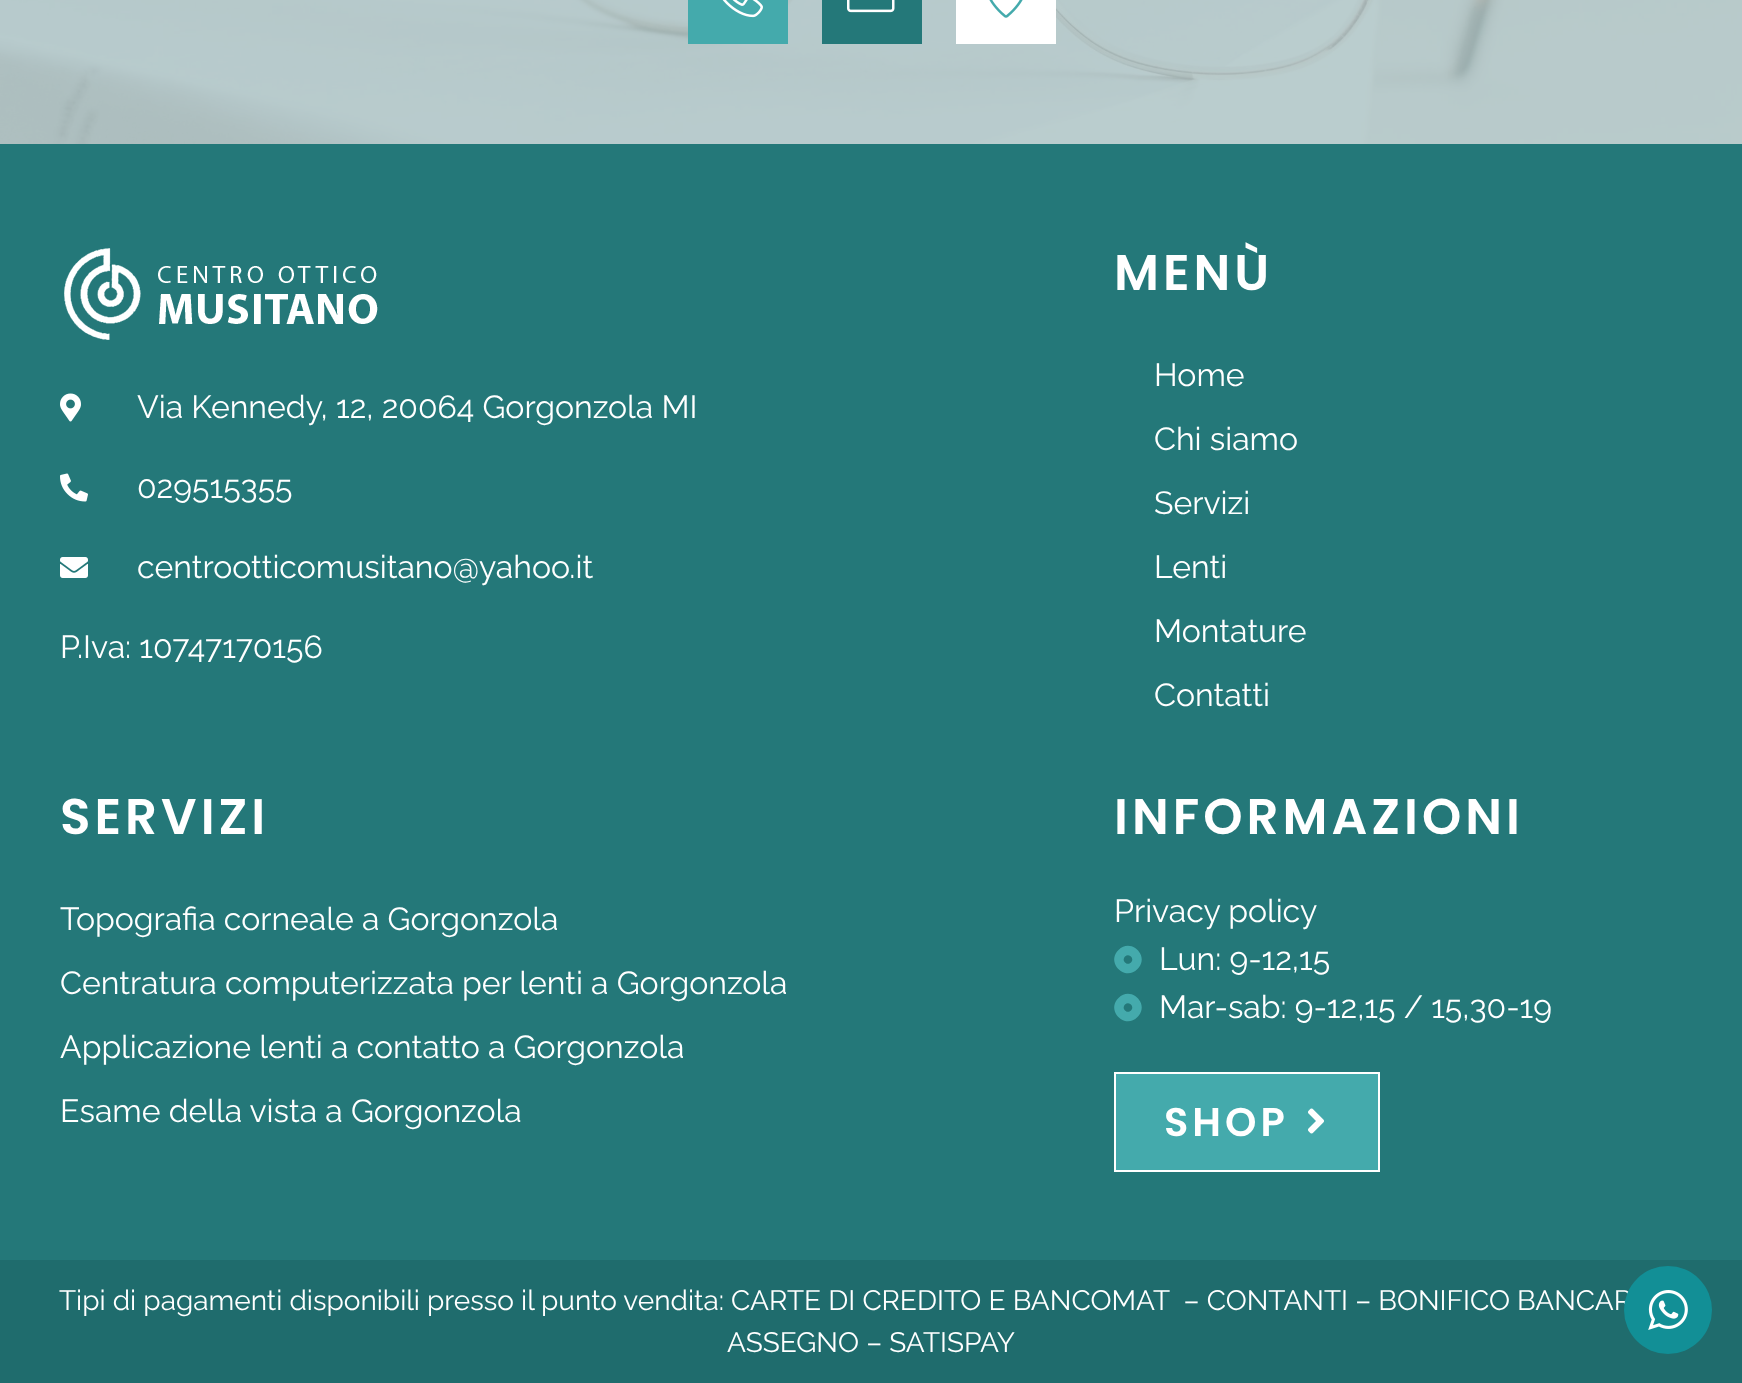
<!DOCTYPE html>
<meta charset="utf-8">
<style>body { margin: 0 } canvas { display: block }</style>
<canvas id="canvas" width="1742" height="1383"></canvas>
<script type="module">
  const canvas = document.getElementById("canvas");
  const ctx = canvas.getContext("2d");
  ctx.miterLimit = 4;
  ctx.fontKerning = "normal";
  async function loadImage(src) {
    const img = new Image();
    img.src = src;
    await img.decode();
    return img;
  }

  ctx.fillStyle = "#ffffff";
  ctx.fillRect(0, 0, 1742, 1383);
  ctx.drawImage(await loadImage("img1.png"), 0, 0, 1742, 144);
  ctx.fillStyle = "#44aaac";
  ctx.fillRect(688, 0, 100, 44);
  ctx.drawImage(await loadImage("img2.png"), 722, 0, 41, 18);
  ctx.fillStyle = "#247879";
  ctx.fillRect(822, 0, 100, 44);
  ctx.drawImage(await loadImage("img3.png"), 847, 0, 48, 13);
  ctx.fillStyle = "#ffffff";
  ctx.fillRect(956, 0, 100, 44);
  ctx.drawImage(await loadImage("img4.png"), 989, 0, 34, 18);
  ctx.fillStyle = "#247879";
  ctx.fillRect(0, 144, 1742, 1116);
  ctx.drawImage(await loadImage("img5.png"), 64, 248, 314, 92);
  ctx.drawImage(await loadImage("img6.png"), 60, 393, 21, 29);
  ctx.font = "32px Raleway";
  ctx.fillStyle = "#ffffff";
  ctx.fillText("Via Kennedy, 12, 20064 Gorgonzola MI", 137, 418);
  ctx.drawImage(await loadImage("img7.png"), 60, 473, 28, 29);
  ctx.fillText("029515355", 137, 498);
  ctx.drawImage(await loadImage("img8.png"), 60, 557, 28, 21);
  ctx.fillText("centrootticomusitano@yahoo.it", 137, 578);
  ctx.fillText("P.Iva: 10747170156", 60, 658);
  ctx.letterSpacing = "4px";
  ctx.font = "600 50px Poppins";
  ctx.fillText("MENÙ", 1114, 290);
  ctx.letterSpacing = "0px";
  ctx.font = "32px Raleway";
  ctx.fillText("Home", 1154, 386);
  ctx.fillText("Chi siamo", 1154, 450);
  ctx.fillText("Servizi", 1154, 514);
  ctx.fillText("Lenti", 1154, 578);
  ctx.fillText("Montature", 1154, 642);
  ctx.fillText("Contatti", 1154, 706);
  ctx.letterSpacing = "4px";
  ctx.font = "600 50px Poppins";
  ctx.fillText("SERVIZI", 60, 834);
  ctx.letterSpacing = "0px";
  ctx.font = "32px Raleway";
  ctx.fillText("Topografia corneale a Gorgonzola", 60, 930);
  ctx.fillText("Centratura computerizzata per lenti a Gorgonzola", 60, 994);
  ctx.fillText("Applicazione lenti a contatto a Gorgonzola", 60, 1058);
  ctx.fillText("Esame della vista a Gorgonzola", 60, 1122);
  ctx.letterSpacing = "4px";
  ctx.font = "600 50px Poppins";
  ctx.fillText("INFORMAZIONI", 1114, 834);
  ctx.letterSpacing = "0px";
  ctx.font = "32px Raleway";
  ctx.fillText("Privacy policy", 1114, 922);
  ctx.fillStyle = "#44aaac";
  ctx.beginPath();
  ctx.moveTo(1118.5, 950);
  ctx.bezierCurveTo(1131, 937, 1150.5, 956.5, 1137.5, 969);
  ctx.bezierCurveTo(1125, 982, 1105.5, 962.5, 1118.5, 950);
  ctx.closePath();
  ctx.moveTo(1131, 962.5);
  ctx.bezierCurveTo(1135, 958.5, 1129, 952.5, 1125, 956.5);
  ctx.bezierCurveTo(1121, 960.5, 1127, 966.5, 1131, 962.5);
  ctx.closePath();
  ctx.fill();
  ctx.fillStyle = "#ffffff";
  ctx.fillText("Lun: 9-12,15", 1159, 970);
  ctx.fillStyle = "#44aaac";
  ctx.beginPath();
  ctx.moveTo(1118.5, 998);
  ctx.bezierCurveTo(1131, 985, 1150.5, 1004.5, 1137.5, 1017);
  ctx.bezierCurveTo(1125, 1030, 1105.5, 1010.5, 1118.5, 998);
  ctx.closePath();
  ctx.moveTo(1131, 1010.5);
  ctx.bezierCurveTo(1135, 1006.5, 1129, 1000.5, 1125, 1004.5);
  ctx.bezierCurveTo(1121, 1008.5, 1127, 1014.5, 1131, 1010.5);
  ctx.closePath();
  ctx.fill();
  ctx.fillStyle = "#ffffff";
  ctx.fillText("Mar-sab: 9-12,15 / 15,30-19", 1159, 1018);
  ctx.fillStyle = "#44aaac";
  ctx.beginPath();
  ctx.rect(1115, 1073, 264, 98);
  ctx.fill();
  ctx.strokeStyle = "#ffffff";
  ctx.lineWidth = 2;
  ctx.stroke();
  ctx.letterSpacing = "4px";
  ctx.font = "600 40px Poppins";
  ctx.fillStyle = "#ffffff";
  ctx.fillText("SHOP", 1164, 1136);
  ctx.drawImage(await loadImage("img9.png"), 1308, 1108, 16, 26);
  ctx.fillStyle = "#1f6c6d";
  ctx.fillRect(0, 1260, 1742, 123);
  ctx.letterSpacing = "0px";
  ctx.font = "28px Raleway";
  ctx.fillStyle = "#ffffff";
  ctx.fillText("Tipi di pagamenti disponibili presso il punto vendita: CARTE DI CREDITO E BANCOMAT  – CONTANTI – BONIFICO BANCAR", 59, 1310);
  ctx.fillText("ASSEGNO – SATISPAY", 727, 1352);
  ctx.fillStyle = "#128f96";
  ctx.beginPath();
  ctx.arc(1668, 1310, 44, 0, Math.PI * 2);
  ctx.fill();
  ctx.drawImage(await loadImage("img10.png"), 1648, 1290, 40, 40);
</script>
